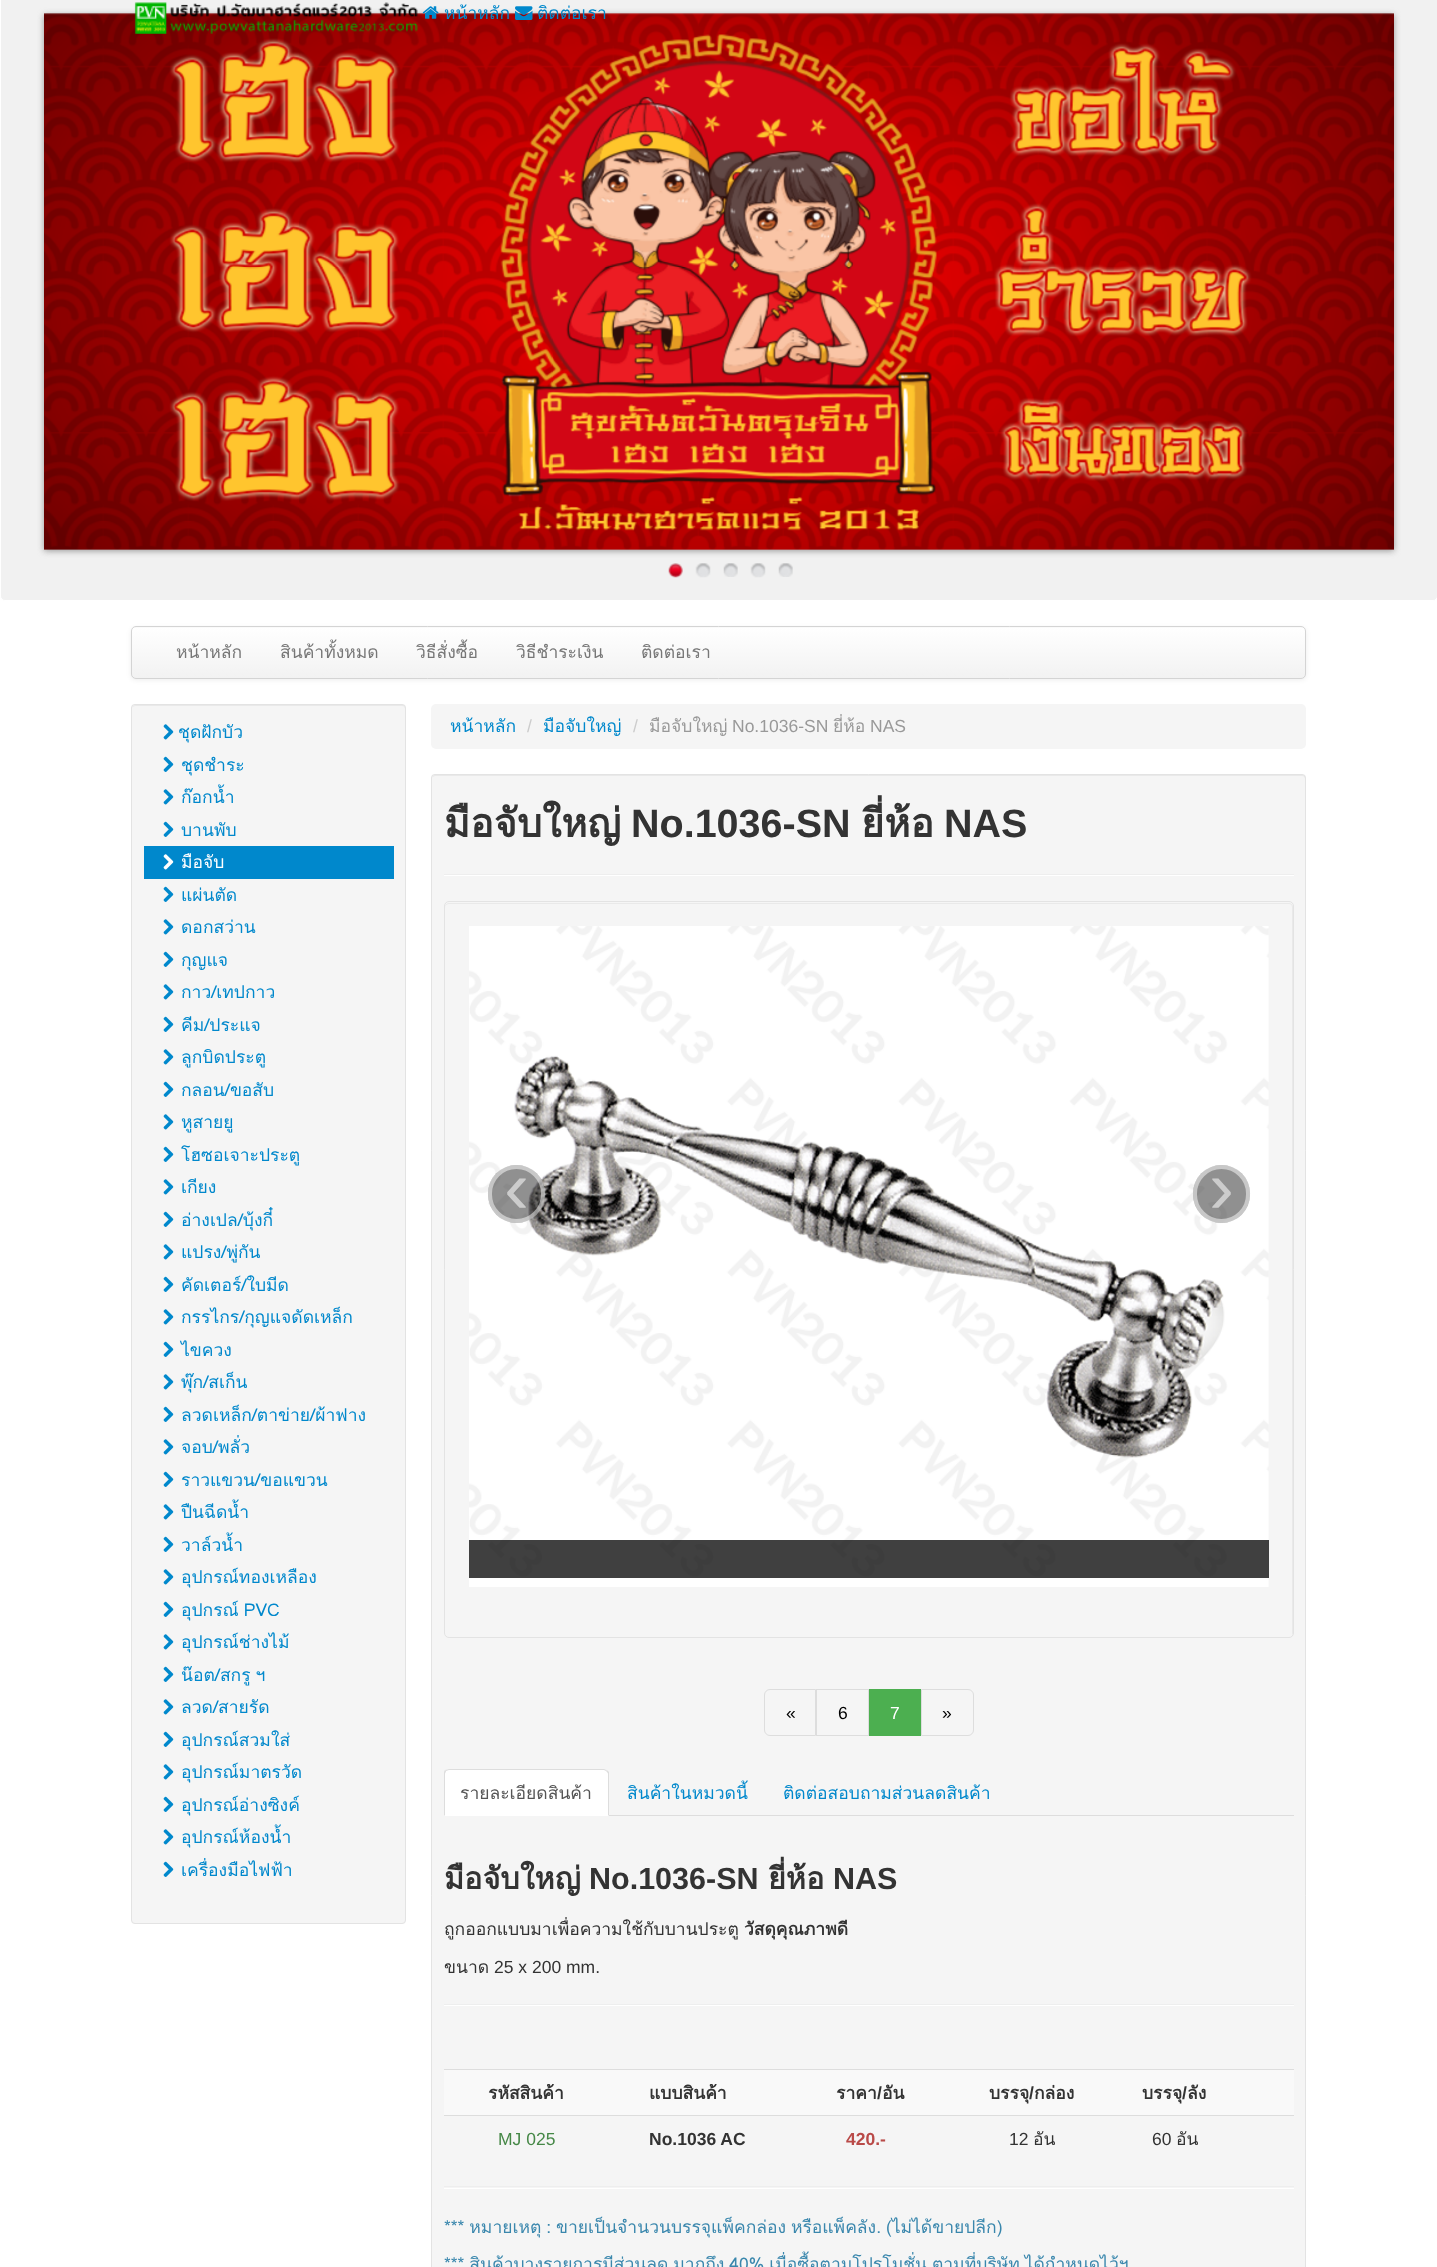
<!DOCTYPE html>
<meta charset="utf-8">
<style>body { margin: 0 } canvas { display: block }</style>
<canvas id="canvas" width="1437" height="2267"></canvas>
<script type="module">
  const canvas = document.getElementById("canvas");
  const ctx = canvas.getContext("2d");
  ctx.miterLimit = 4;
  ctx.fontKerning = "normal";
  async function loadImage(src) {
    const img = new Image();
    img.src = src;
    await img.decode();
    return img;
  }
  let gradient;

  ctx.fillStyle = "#ffffff";
  ctx.fillRect(0, 0, 1437, 2267);
  ctx.fillStyle = "#f1f1f1";
  ctx.beginPath();
  ctx.roundRect(0.5, -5.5, 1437, 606, 4.5);
  ctx.fill();
  ctx.strokeStyle = "#ffffff";
  ctx.stroke();
  ctx.fillStyle = "#999999";
  ctx.filter = "blur(3px)";
  ctx.beginPath();
  ctx.rect(44, 15, 1350, 536);
  ctx.fill();
  ctx.filter = "none";
  ctx.drawImage(await loadImage("img1.png"), 44, 13, 1350, 537);
  ctx.drawImage(await loadImage("img2.png"), 668, 563, 15, 15);
  ctx.drawImage(await loadImage("img3.png"), 695, 563, 16, 15);
  ctx.drawImage(await loadImage("img4.png"), 723, 563, 15, 14);
  ctx.drawImage(await loadImage("img3.png"), 750, 563, 16, 15);
  ctx.drawImage(await loadImage("img5.png"), 778, 563, 15, 14);
  ctx.drawImage(await loadImage("img6.png"), 134, 2, 284, 32);
  ctx.drawImage(await loadImage("img7.png"), 422, 6, 17, 13);
  ctx.font = "17.5px Loma";
  ctx.fillStyle = "#0088cc";
  ctx.fillText("หน้าหลัก", 444, 19);
  ctx.drawImage(await loadImage("img8.png"), 515, 6, 18, 14);
  ctx.fillText("ติดต่อเรา", 537, 19);
  ctx.fillStyle = "rgba(0, 0, 0, 0.07)";
  ctx.filter = "blur(2.5px)";
  ctx.beginPath();
  ctx.roundRect(131, 628, 1175, 52, 5);
  ctx.fill();
  ctx.filter = "none";
  ctx.fillStyle = "#fafafa";
  ctx.beginPath();
  ctx.roundRect(131, 626, 1175, 53, 5);
  ctx.fill();
  ctx.save();
  ctx.beginPath();
  ctx.roundRect(131, 626, 1175, 53, 5);
  ctx.clip();
  gradient = ctx.createLinearGradient(719, 627, 719, 678);
  gradient.addColorStop(0, "#ffffff");
  gradient.addColorStop(1, "#f2f2f2");
  ctx.fillStyle = gradient;
  ctx.fillRect(131, 628, 1175, 50);
  ctx.restore();
  ctx.beginPath();
  ctx.roundRect(131.5, 626.5, 1174, 52, 4.5);
  ctx.strokeStyle = "#d4d4d4";
  ctx.stroke();
  ctx.fillStyle = "#777777";
  ctx.fillText("หน้าหลัก", 176, 658);
  ctx.fillText("สินค้าทั้งหมด", 280, 658);
  ctx.fillText("วิธีสั่งซื้อ", 416, 658);
  ctx.fillText("วิธีชำระเงิน", 516, 658);
  ctx.fillText("ติดต่อเรา", 641, 658);
  ctx.fillStyle = "#f5f5f5";
  ctx.beginPath();
  ctx.roundRect(131, 704, 275, 1220, 4);
  ctx.fill();
  ctx.fillStyle = "#e9e9e9";
  ctx.beginPath();
  ctx.moveTo(135, 706);
  ctx.lineTo(402, 706);
  ctx.bezierCurveTo(404, 706, 405, 707, 405, 709);
  ctx.lineTo(405, 708);
  ctx.bezierCurveTo(405, 706, 404, 705, 402, 705);
  ctx.lineTo(136, 705);
  ctx.bezierCurveTo(134, 705, 133, 706, 133, 707);
  ctx.closePath();
  ctx.fill();
  ctx.beginPath();
  ctx.roundRect(131.5, 704.5, 274, 1219, 3.5);
  ctx.strokeStyle = "#e3e3e3";
  ctx.stroke();
  ctx.drawImage(await loadImage("img9.png"), 163, 724, 11, 16);
  ctx.fillStyle = "#0088cc";
  ctx.fillText("ชุดฝักบัว", 178, 738);
  ctx.drawImage(await loadImage("img10.png"), 163, 756, 11, 16);
  ctx.fillText("ชุดชำระ", 181, 771);
  ctx.drawImage(await loadImage("img9.png"), 163, 789, 11, 16);
  ctx.fillText("ก๊อกน้ำ", 181, 803);
  ctx.drawImage(await loadImage("img10.png"), 163, 821, 11, 16);
  ctx.fillText("บานพับ", 181, 836);
  ctx.fillRect(144, 846, 250, 33);
  ctx.drawImage(await loadImage("img11.png"), 163, 854, 11, 16);
  ctx.fillStyle = "#ffffff";
  ctx.fillText("มือจับ", 181, 868);
  ctx.drawImage(await loadImage("img10.png"), 163, 886, 11, 16);
  ctx.fillStyle = "#0088cc";
  ctx.fillText("แผ่นตัด", 181, 901);
  ctx.drawImage(await loadImage("img9.png"), 163, 919, 11, 16);
  ctx.fillText("ดอกสว่าน", 181, 933);
  ctx.drawImage(await loadImage("img10.png"), 163, 951, 11, 16);
  ctx.fillText("กุญแจ", 181, 966);
  ctx.drawImage(await loadImage("img9.png"), 163, 984, 11, 16);
  ctx.fillText("กาว/เทปกาว", 181, 998);
  ctx.drawImage(await loadImage("img10.png"), 163, 1016, 11, 16);
  ctx.fillText("คีม/ประแจ", 181, 1031);
  ctx.drawImage(await loadImage("img9.png"), 163, 1049, 11, 16);
  ctx.fillText("ลูกบิดประตู", 181, 1063);
  ctx.drawImage(await loadImage("img10.png"), 163, 1081, 11, 16);
  ctx.fillText("กลอน/ขอสับ", 181, 1096);
  ctx.drawImage(await loadImage("img9.png"), 163, 1114, 11, 16);
  ctx.fillText("หูสายยู", 181, 1128);
  ctx.drawImage(await loadImage("img10.png"), 163, 1146, 11, 16);
  ctx.fillText("โฮซอเจาะประตู", 181, 1161);
  ctx.drawImage(await loadImage("img9.png"), 163, 1179, 11, 16);
  ctx.fillText("เกียง", 181, 1193);
  ctx.drawImage(await loadImage("img10.png"), 163, 1211, 11, 16);
  ctx.fillText("อ่างเปล/บุ้งกี๋", 181, 1226);
  ctx.drawImage(await loadImage("img9.png"), 163, 1244, 11, 16);
  ctx.fillText("แปรง/พู่กัน", 181, 1258);
  ctx.drawImage(await loadImage("img10.png"), 163, 1276, 11, 16);
  ctx.fillText("คัดเตอร์/ใบมีด", 181, 1291);
  ctx.drawImage(await loadImage("img9.png"), 163, 1309, 11, 16);
  ctx.fillText("กรรไกร/กุญแจดัดเหล็ก", 181, 1323);
  ctx.drawImage(await loadImage("img10.png"), 163, 1341, 11, 16);
  ctx.fillText("ไขควง", 181, 1356);
  ctx.drawImage(await loadImage("img9.png"), 163, 1374, 11, 16);
  ctx.fillText("พุ๊ก/สเก็น", 181, 1388);
  ctx.drawImage(await loadImage("img10.png"), 163, 1406, 11, 16);
  ctx.fillText("ลวดเหล็ก/ตาข่าย/ผ้าฟาง", 181, 1421);
  ctx.drawImage(await loadImage("img9.png"), 163, 1439, 11, 16);
  ctx.fillText("จอบ/พลั่ว", 181, 1453);
  ctx.drawImage(await loadImage("img10.png"), 163, 1471, 11, 16);
  ctx.fillText("ราวแขวน/ขอแขวน", 181, 1486);
  ctx.drawImage(await loadImage("img9.png"), 163, 1504, 11, 16);
  ctx.fillText("ปืนฉีดน้ำ", 181, 1518);
  ctx.drawImage(await loadImage("img10.png"), 163, 1536, 11, 16);
  ctx.fillText("วาล์วน้ำ", 181, 1551);
  ctx.drawImage(await loadImage("img9.png"), 163, 1569, 11, 16);
  ctx.fillText("อุปกรณ์ทองเหลือง", 181, 1583);
  ctx.drawImage(await loadImage("img10.png"), 163, 1601, 11, 16);
  ctx.wordSpacing = "-1px";
  ctx.fillText("อุปกรณ์ PVC", 181, 1616);
  ctx.drawImage(await loadImage("img9.png"), 163, 1634, 11, 16);
  ctx.wordSpacing = "0px";
  ctx.fillText("อุปกรณ์ช่างไม้", 181, 1648);
  ctx.drawImage(await loadImage("img10.png"), 163, 1666, 11, 16);
  ctx.wordSpacing = "-1px";
  ctx.fillText("น๊อต/สกรู ฯ", 181, 1681);
  ctx.drawImage(await loadImage("img9.png"), 163, 1699, 11, 16);
  ctx.wordSpacing = "0px";
  ctx.fillText("ลวด/สายรัด", 181, 1713);
  ctx.drawImage(await loadImage("img10.png"), 163, 1731, 11, 16);
  ctx.fillText("อุปกรณ์สวมใส่", 181, 1746);
  ctx.drawImage(await loadImage("img9.png"), 163, 1764, 11, 16);
  ctx.fillText("อุปกรณ์มาตรวัด", 181, 1778);
  ctx.drawImage(await loadImage("img10.png"), 163, 1796, 11, 16);
  ctx.fillText("อุปกรณ์อ่างซิงค์", 181, 1811);
  ctx.drawImage(await loadImage("img9.png"), 163, 1829, 11, 16);
  ctx.fillText("อุปกรณ์ห้องน้ำ", 181, 1843);
  ctx.drawImage(await loadImage("img10.png"), 163, 1861, 11, 16);
  ctx.fillText("เครื่องมือไฟฟ้า", 181, 1876);
  ctx.fillStyle = "#f5f5f5";
  ctx.beginPath();
  ctx.roundRect(431, 704, 875, 45, 5);
  ctx.fill();
  ctx.fillStyle = "#0088cc";
  ctx.fillText("หน้าหลัก", 450, 732);
  ctx.font = "17.5px Liberation Sans";
  ctx.fillStyle = "#cccccc";
  ctx.fillText("/", 527, 732);
  ctx.font = "17.5px Loma";
  ctx.fillStyle = "#0088cc";
  ctx.fillText("มือจับใหญ่", 543, 732);
  ctx.font = "17.5px Liberation Sans";
  ctx.fillStyle = "#cccccc";
  ctx.fillText("/", 633, 732);
  ctx.font = "17.5px Loma";
  ctx.fillStyle = "#999999";
  ctx.fillText("มือจับใหญ่", 649, 732);
  ctx.font = "17.5px Liberation Sans";
  ctx.fillText("No.1036-SN", 732, 732);
  ctx.font = "17.5px Loma";
  ctx.fillText("ยี่ห้อ", 833, 732);
  ctx.font = "17.5px Liberation Sans";
  ctx.fillText("NAS", 870, 732);
  ctx.fillStyle = "#f5f5f5";
  ctx.beginPath();
  ctx.roundRect(431, 774, 875, 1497, 4);
  ctx.fill();
  ctx.fillStyle = "#e9e9e9";
  ctx.beginPath();
  ctx.moveTo(435, 776);
  ctx.lineTo(1302, 776);
  ctx.bezierCurveTo(1304, 776, 1305, 777, 1305, 779);
  ctx.lineTo(1305, 776);
  ctx.lineTo(1302, 775);
  ctx.lineTo(435, 775);
  ctx.bezierCurveTo(434, 775, 433, 776, 433, 777);
  ctx.closePath();
  ctx.fill();
  ctx.beginPath();
  ctx.roundRect(431.5, 774.5, 874, 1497, 3.5);
  ctx.stroke();
  ctx.font = "bold 39.5px Loma";
  ctx.fillStyle = "#333333";
  ctx.fillText("มือจับใหญ่", 444, 837);
  ctx.font = "bold 39.5px Liberation Sans";
  ctx.fillText("No.1036-SN", 631, 837);
  ctx.font = "bold 39.5px Loma";
  ctx.fillText("ยี่ห้อ", 861, 837);
  ctx.font = "bold 39.5px Liberation Sans";
  ctx.fillText("NAS", 944, 837);
  ctx.fillStyle = "#eeeeee";
  ctx.fillRect(444, 874, 850, 1);
  ctx.fillStyle = "#ffffff";
  ctx.fillRect(444, 875, 850, 1);
  ctx.fillStyle = "#e9e9e9";
  ctx.beginPath();
  ctx.moveTo(449, 904);
  ctx.lineTo(1289, 904);
  ctx.bezierCurveTo(1291, 904, 1292, 905, 1292, 908);
  ctx.lineTo(1292, 1635);
  ctx.bezierCurveTo(1293, 1634, 1293, 1633, 1293, 1632);
  ctx.lineTo(1293, 907);
  ctx.bezierCurveTo(1293, 905, 1291, 903, 1289, 903);
  ctx.lineTo(449, 903);
  ctx.bezierCurveTo(447, 903, 445, 905, 445, 907);
  ctx.lineTo(445, 908);
  ctx.bezierCurveTo(445, 905, 447, 904, 449, 904);
  ctx.closePath();
  ctx.fill();
  ctx.beginPath();
  ctx.roundRect(444.5, 901.5, 849, 736, 4.5);
  ctx.stroke();
  ctx.drawImage(await loadImage("img12.png"), 469, 926, 800, 661);
  ctx.fillStyle = "rgba(0, 0, 0, 0.75)";
  ctx.fillRect(469, 1540, 800, 38);
  ctx.fillStyle = "rgba(34, 34, 34, 0.5)";
  ctx.beginPath();
  ctx.roundRect(488, 1165, 57, 58, 28.5);
  ctx.fill();
  ctx.beginPath();
  ctx.roundRect(490, 1167, 53, 54, 26.5);
  ctx.strokeStyle = "rgba(255, 255, 255, 0.5)";
  ctx.lineWidth = 4;
  ctx.stroke();
  ctx.font = "75px Liberation Sans";
  ctx.fillStyle = "#cccccc";
  ctx.fillText("‹", 504, 1213);
  ctx.fillStyle = "rgba(34, 34, 34, 0.5)";
  ctx.beginPath();
  ctx.roundRect(1193, 1165, 57, 58, 28.5);
  ctx.fill();
  ctx.beginPath();
  ctx.roundRect(1195, 1167, 53, 54, 26.5);
  ctx.stroke();
  ctx.fillStyle = "#cccccc";
  ctx.fillText("›", 1209, 1213);
  ctx.beginPath();
  ctx.roundRect(764.5, 1689.5, 51, 46, [5.5, 0, 0, 5.5]);
  ctx.strokeStyle = "#dddddd";
  ctx.lineWidth = 1;
  ctx.stroke();
  ctx.font = "17.5px Liberation Sans";
  ctx.fillStyle = "#000000";
  ctx.fillText("«", 786, 1719);
  ctx.strokeRect(816.5, 1689.5, 52, 46);
  ctx.fillText("6", 838, 1719);
  ctx.fillStyle = "#4caf50";
  ctx.fillRect(869, 1689, 52, 47);
  ctx.fillStyle = "#ffffff";
  ctx.fillText("7", 890, 1719);
  ctx.beginPath();
  ctx.roundRect(921.5, 1689.5, 52, 46, [0, 5.5, 5.5, 0]);
  ctx.stroke();
  ctx.fillStyle = "#000000";
  ctx.fillText("»", 942, 1719);
  ctx.fillStyle = "#dddddd";
  ctx.fillRect(609, 1815, 685, 1);
  ctx.fillStyle = "#ffffff";
  ctx.beginPath();
  ctx.roundRect(444, 1769, 165, 47, [5, 5, 0, 0]);
  ctx.fill();
  ctx.fillStyle = "#dddddd";
  ctx.beginPath();
  ctx.moveTo(449, 1769);
  ctx.bezierCurveTo(448, 1769, 446, 1770, 445, 1770);
  ctx.lineTo(446, 1771);
  ctx.lineTo(449, 1770);
  ctx.lineTo(604, 1770);
  ctx.lineTo(606, 1771);
  ctx.lineTo(607, 1770);
  ctx.lineTo(604, 1769);
  ctx.closePath();
  ctx.fill();
  ctx.beginPath();
  ctx.moveTo(607, 1770);
  ctx.lineTo(609, 1772);
  ctx.lineTo(609, 1816);
  ctx.lineTo(608, 1815);
  ctx.lineTo(608, 1774);
  ctx.bezierCurveTo(608, 1773, 607, 1772, 606, 1771);
  ctx.closePath();
  ctx.fill();
  ctx.beginPath();
  ctx.moveTo(445, 1770);
  ctx.bezierCurveTo(444, 1771, 444, 1772, 444, 1774);
  ctx.lineTo(444, 1816);
  ctx.lineTo(445, 1815);
  ctx.lineTo(445, 1774);
  ctx.bezierCurveTo(445, 1773, 446, 1772, 446, 1771);
  ctx.closePath();
  ctx.fill();
  ctx.font = "17.5px Loma";
  ctx.fillStyle = "#555555";
  ctx.fillText("รายละเอียดสินค้า", 460, 1799);
  ctx.fillStyle = "#0088cc";
  ctx.fillText("สินค้าในหมวดนี้", 627, 1799);
  ctx.fillText("ติดต่อสอบถามส่วนลดสินค้า", 783, 1799);
  ctx.save();
  ctx.beginPath();
  ctx.rect(444, 1841, 850, 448);
  ctx.clip();
  ctx.font = "bold 30.5px Loma";
  ctx.fillStyle = "#333333";
  ctx.fillText("มือจับใหญ่", 444, 1889);
  ctx.restore();
  ctx.font = "bold 30.5px Liberation Sans";
  ctx.fillStyle = "#333333";
  ctx.fillText("No.1036-SN", 589, 1889);
  ctx.font = "bold 30.5px Loma";
  ctx.fillText("ยี่ห้อ", 768, 1889);
  ctx.font = "bold 30.5px Liberation Sans";
  ctx.fillText("NAS", 833, 1889);
  ctx.save();
  ctx.beginPath();
  ctx.rect(444, 1841, 850, 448);
  ctx.clip();
  ctx.font = "17.5px Loma";
  ctx.fillText("ถูกออกแบบมาเพื่อความใช้กับบานประตู", 444, 1935);
  ctx.restore();
  ctx.font = "bold 17.5px Loma";
  ctx.fillText("วัสดุคุณภาพดี", 744, 1935);
  ctx.font = "17.5px Loma";
  ctx.fillText("ขนาด", 444, 1973);
  ctx.font = "17.5px Liberation Sans";
  ctx.fillText("25 x 200 mm.", 494, 1973);
  ctx.fillStyle = "#eeeeee";
  ctx.fillRect(444, 2004, 850, 1);
  ctx.fillStyle = "#ffffff";
  ctx.fillRect(444, 2005, 850, 1);
  ctx.fillStyle = "#f9f9f9";
  ctx.fillRect(444, 2070, 850, 45);
  ctx.font = "bold 17.5px Loma";
  ctx.fillStyle = "#333333";
  ctx.fillText("รหัสสินค้า", 488, 2099);
  ctx.fillText("แบบสินค้า", 649, 2099);
  ctx.fillText("ราคา", 836, 2099);
  ctx.font = "bold 17.5px Liberation Sans";
  ctx.fillText("/", 877, 2099);
  ctx.font = "bold 17.5px Loma";
  ctx.fillText("อัน", 882, 2099);
  ctx.fillText("บรรจุ", 989, 2099);
  ctx.font = "bold 17.5px Liberation Sans";
  ctx.fillText("/", 1029, 2099);
  ctx.font = "bold 17.5px Loma";
  ctx.fillText("กล่อง", 1034, 2099);
  ctx.fillStyle = "#dddddd";
  ctx.fillRect(444, 2069, 850, 1);
  ctx.fillStyle = "#333333";
  ctx.fillText("บรรจุ", 1142, 2099);
  ctx.font = "bold 17.5px Liberation Sans";
  ctx.fillText("/", 1182, 2099);
  ctx.font = "bold 17.5px Loma";
  ctx.fillText("ลัง", 1187, 2099);
  ctx.font = "17.5px Liberation Sans";
  ctx.fillStyle = "#468847";
  ctx.fillText("MJ 025", 498, 2145);
  ctx.font = "bold 17.5px Liberation Sans";
  ctx.fillStyle = "#333333";
  ctx.fillText("No.1036 AC", 649, 2145);
  ctx.fillStyle = "#b94a48";
  ctx.fillText("420.-", 846, 2145);
  ctx.font = "17.5px Liberation Sans";
  ctx.fillStyle = "#333333";
  ctx.fillText("12", 1009, 2145);
  ctx.font = "17.5px Loma";
  ctx.fillText("อัน", 1033, 2145);
  ctx.fillStyle = "#dddddd";
  ctx.fillRect(444, 2115, 850, 1);
  ctx.font = "17.5px Liberation Sans";
  ctx.fillStyle = "#333333";
  ctx.fillText("60", 1152, 2145);
  ctx.font = "17.5px Loma";
  ctx.fillText("อัน", 1176, 2145);
  ctx.fillStyle = "#eeeeee";
  ctx.fillRect(444, 2186, 850, 1);
  ctx.fillStyle = "#ffffff";
  ctx.fillRect(444, 2188, 850, 1);
  ctx.wordSpacing = "-1px";
  ctx.fillStyle = "#3a87ad";
  ctx.fillText("*** หมายเหตุ : ขายเป็นจำนวนบรรจุแพ็คกล่อง หรือแพ็คลัง. (ไม่ได้ขายปลีก)", 444, 2233);
  ctx.fillText("*** สินค้าบางรายการมีส่วนลด มากถึง 40% เมื่อซื้อตามโปรโมชั่น ตามที่บริษัท ได้กำหนดไว้ฯ", 444, 2270);
</script>
